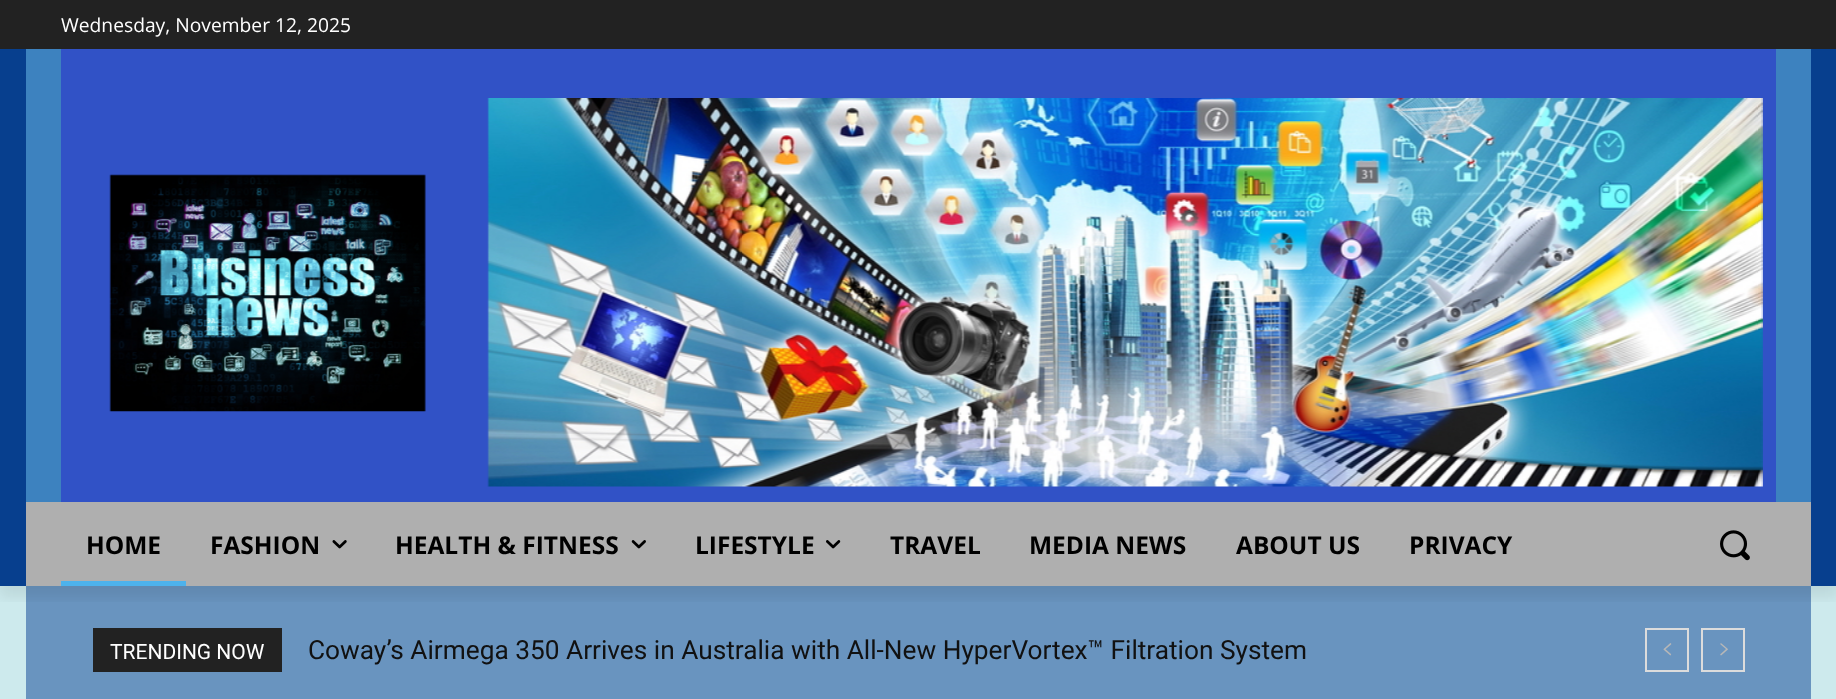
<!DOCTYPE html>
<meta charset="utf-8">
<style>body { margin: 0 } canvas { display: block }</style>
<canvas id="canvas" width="1836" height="699"></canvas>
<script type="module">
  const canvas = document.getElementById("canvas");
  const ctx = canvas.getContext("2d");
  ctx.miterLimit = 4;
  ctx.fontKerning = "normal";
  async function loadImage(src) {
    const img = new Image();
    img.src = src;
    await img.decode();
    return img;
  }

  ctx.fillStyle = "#cdeaed";
  ctx.fillRect(0, 0, 1836, 699);
  ctx.fillStyle = "#222222";
  ctx.fillRect(0, 0, 1836, 49);
  ctx.fillStyle = "#073f8e";
  ctx.fillRect(0, 49, 1836, 537);
  ctx.fillStyle = "#3d82bf";
  ctx.fillRect(26, 49, 1785, 453);
  ctx.fillStyle = "#3152c6";
  ctx.fillRect(61, 49, 1715, 453);
  ctx.drawImage(await loadImage("img1.png"), 109, 174, 317, 238);
  ctx.drawImage(await loadImage("img2.png"), 487, 98, 1276, 389);
  ctx.fillStyle = "#afafaf";
  ctx.fillRect(26, 502, 1785, 84);
  ctx.fillStyle = "#6994bf";
  ctx.fillRect(26, 586, 1785, 113);
  ctx.save();
  ctx.beginPath();
  ctx.rect(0, 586, 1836, 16);
  ctx.clip();
  ctx.fillStyle = "rgba(0, 0, 0, 0.08)";
  ctx.filter = "blur(7px)";
  ctx.beginPath();
  ctx.rect(0, 11, 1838, 586);
  ctx.fill();
  ctx.filter = "none";
  ctx.restore();
  ctx.font = "19.25px Open Sans";
  ctx.fillStyle = "#ffffff";
  ctx.fillText("Wednesday, November 12, 2025", 61, 32);
  ctx.font = "bold 24.5px Open Sans";
  ctx.fillStyle = "#000000";
  ctx.fillText("HOME", 86, 554);
  ctx.fillStyle = "#4db2ec";
  ctx.fillRect(61, 581, 125, 5);
  ctx.fillStyle = "#000000";
  ctx.fillText("FASHION", 210, 554);
  ctx.drawImage(await loadImage("img3.png"), 332, 540, 15, 9);
  ctx.fillText("HEALTH & FITNESS", 395, 554);
  ctx.drawImage(await loadImage("img4.png"), 631, 540, 15, 9);
  ctx.fillText("LIFESTYLE", 695, 554);
  ctx.drawImage(await loadImage("img5.png"), 826, 540, 15, 9);
  ctx.fillText("TRAVEL", 890, 554);
  ctx.fillText("MEDIA NEWS", 1029, 554);
  ctx.fillText("ABOUT US", 1236, 554);
  ctx.fillText("PRIVACY", 1409, 554);
  ctx.drawImage(await loadImage("img6.png"), 1720, 530, 30, 31);
  ctx.fillStyle = "#222222";
  ctx.fillRect(93, 628, 189, 44);
  ctx.font = "21px Roboto";
  ctx.fillStyle = "#ffffff";
  ctx.fillText("TRENDING NOW", 110, 659);
  ctx.font = "26.25px Roboto";
  ctx.fillStyle = "#111111";
  ctx.fillText("Coway’s Airmega 350 Arrives in Australia with All-New HyperVortex™ Filtration System", 308, 659);
  ctx.strokeStyle = "#dcdcdc";
  ctx.lineWidth = 2;
  ctx.strokeRect(1646, 629, 42, 42);
  ctx.drawImage(await loadImage("img7.png"), 1663, 643, 9, 13);
  ctx.strokeRect(1702, 629, 42, 42);
  ctx.drawImage(await loadImage("img8.png"), 1720, 643, 8, 13);
</script>
